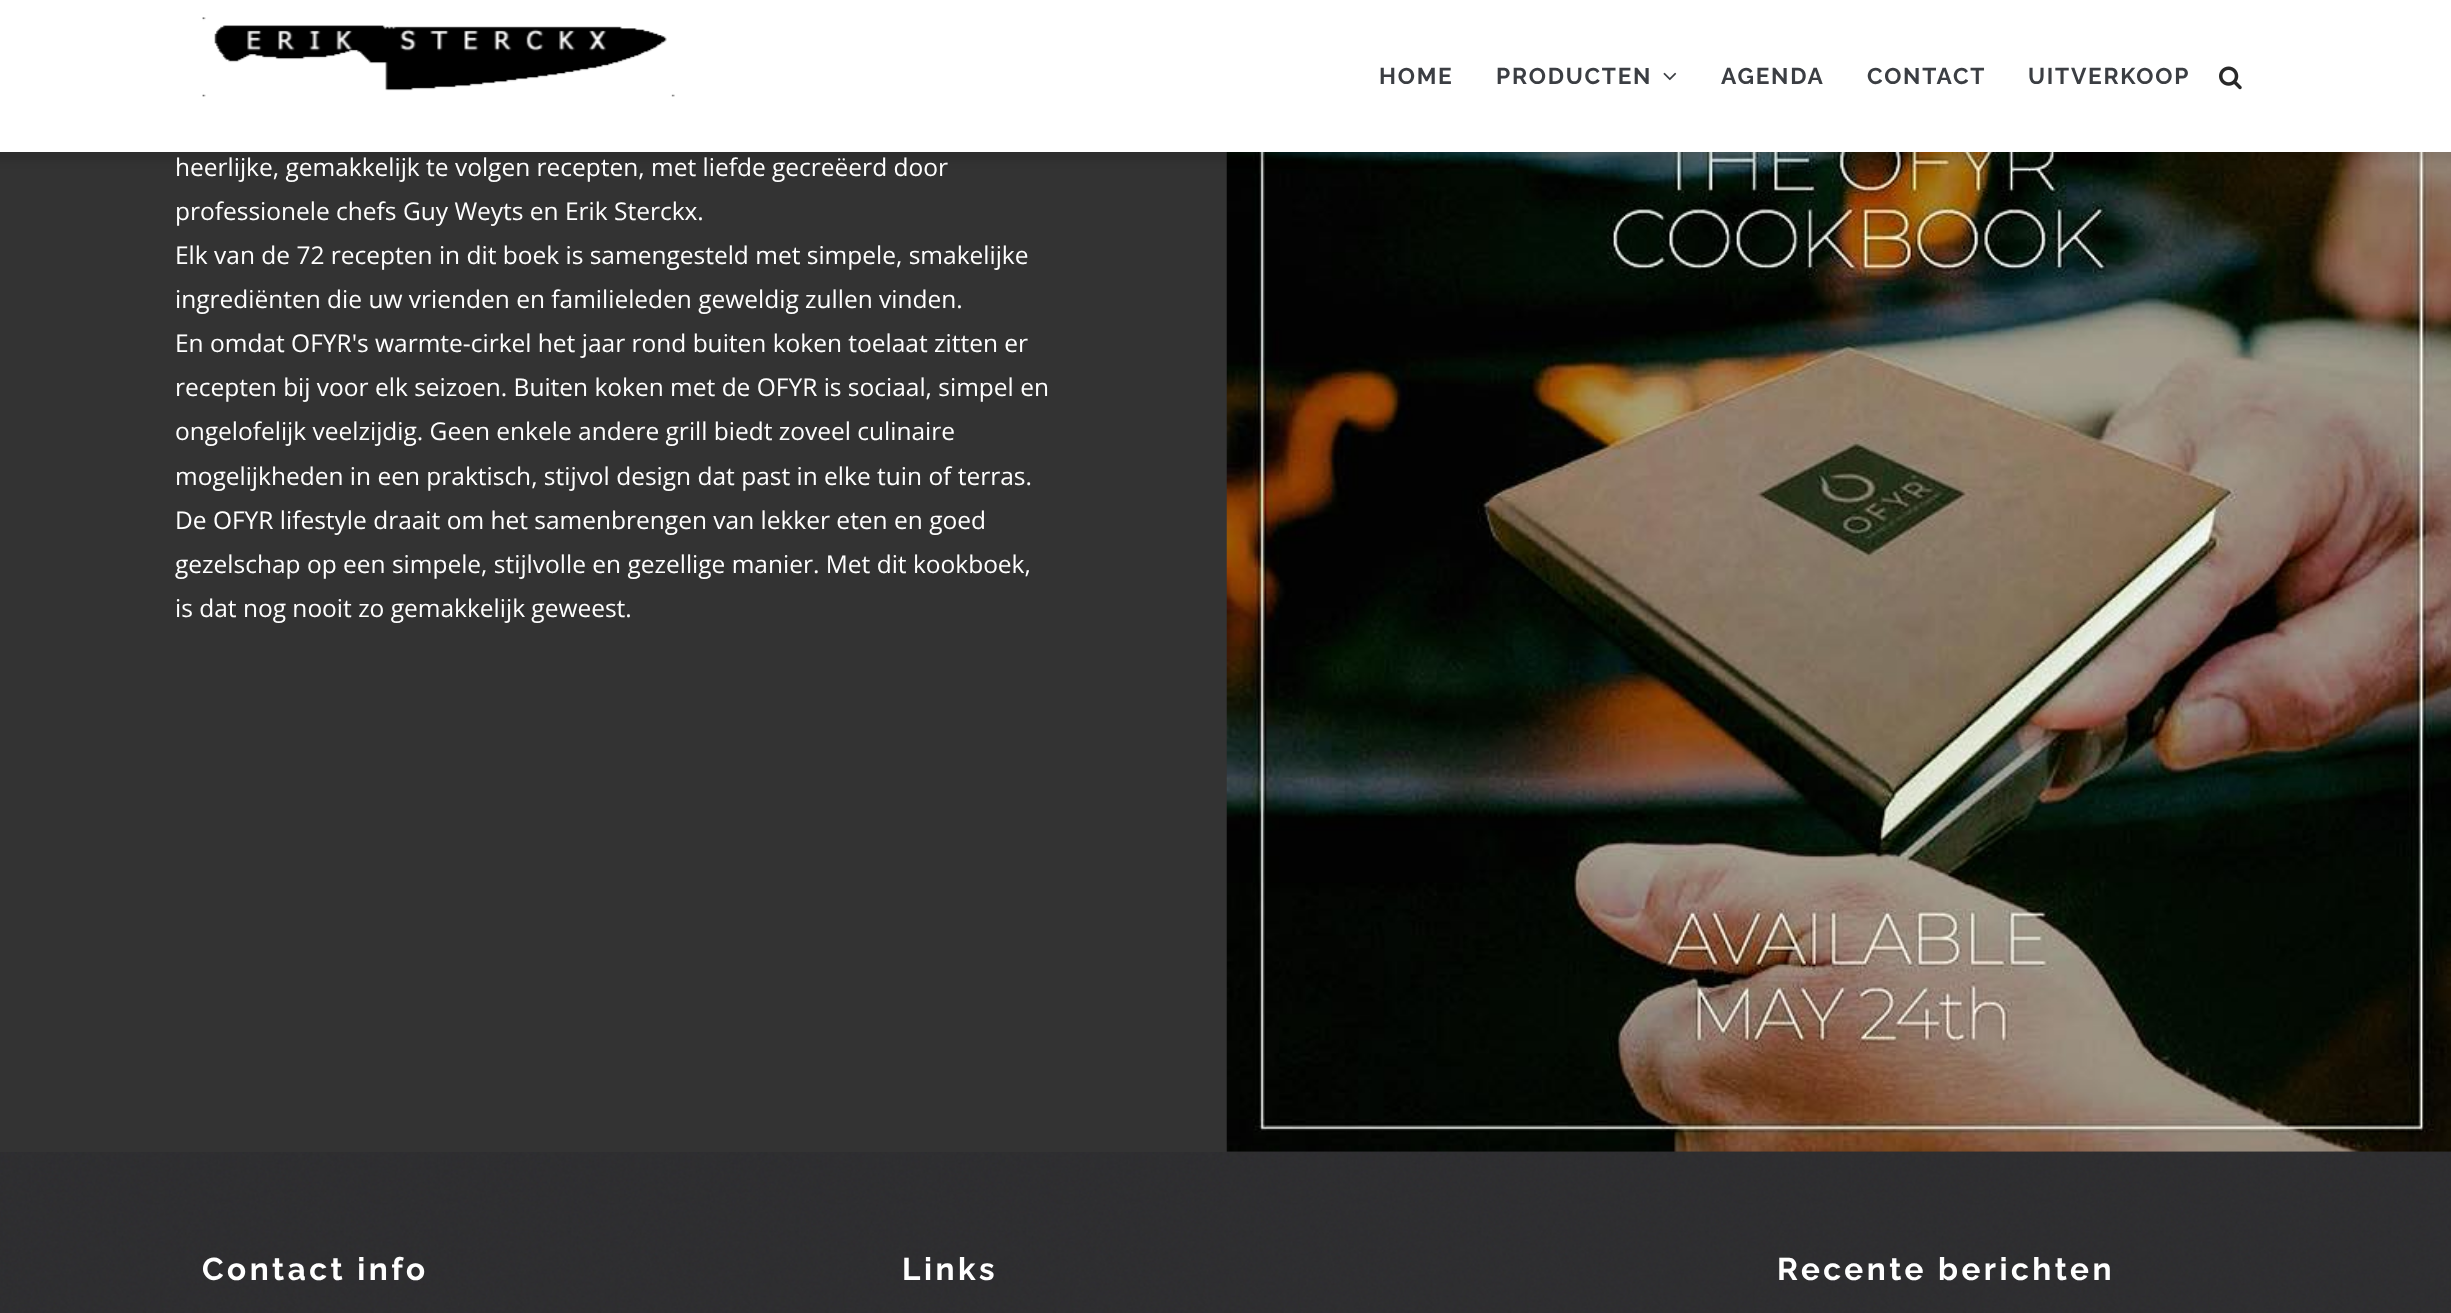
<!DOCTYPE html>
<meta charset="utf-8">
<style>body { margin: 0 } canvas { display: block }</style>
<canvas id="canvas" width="2451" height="1313"></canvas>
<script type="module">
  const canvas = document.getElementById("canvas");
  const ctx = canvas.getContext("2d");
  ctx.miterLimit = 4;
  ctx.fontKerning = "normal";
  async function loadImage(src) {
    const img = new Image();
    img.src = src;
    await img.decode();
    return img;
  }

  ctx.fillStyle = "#ffffff";
  ctx.fillRect(0, 0, 2451, 1313);
  ctx.drawImage(await loadImage("img5.png"), 0, 1151, 2451, 162);
  ctx.fillStyle = "#333333";
  ctx.fillRect(0, 152, 1227, 1000);
  ctx.drawImage(await loadImage("img4.png"), 1226, 152, 1225, 1000);
  ctx.fillStyle = "rgba(0, 0, 0, 0.1)";
  ctx.filter = "blur(4.5px)";
  ctx.beginPath();
  ctx.rect(-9, -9, 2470, 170);
  ctx.fill();
  ctx.filter = "none";
  ctx.fillStyle = "#ffffff";
  ctx.fillRect(0, 0, 2451, 152);
  ctx.drawImage(await loadImage("img1.png"), 202, 17, 473, 80);
  ctx.letterSpacing = "1.75px";
  ctx.font = "bold 22.75px Raleway";
  ctx.fillStyle = "#3b3e43";
  ctx.fillText("HOME", 1379, 84);
  ctx.fillText("PRODUCTEN", 1496, 84);
  ctx.drawImage(await loadImage("img2.png"), 1663, 72, 14, 9);
  ctx.fillText("AGENDA", 1721, 84);
  ctx.fillText("CONTACT", 1867, 84);
  ctx.fillText("UITVERKOOP", 2028, 84);
  ctx.drawImage(await loadImage("img3.png"), 2219, 66, 23, 24);
  ctx.letterSpacing = "0px";
  ctx.font = "24.5px Open Sans";
  ctx.fillStyle = "#ffffff";
  ctx.fillText("heerlijke, gemakkelijk te volgen recepten, met liefde gecreëerd door", 175, 176);
  ctx.fillText("professionele chefs Guy Weyts en Erik Sterckx.", 175, 220);
  ctx.fillText("Elk van de 72 recepten in dit boek is samengesteld met simpele, smakelijke", 175, 264);
  ctx.fillText("ingrediënten die uw vrienden en familieleden geweldig zullen vinden.", 175, 308);
  ctx.fillText("En omdat OFYR's warmte-cirkel het jaar rond buiten koken toelaat zitten er", 175, 352);
  ctx.fillText("recepten bij voor elk seizoen. Buiten koken met de OFYR is sociaal, simpel en", 175, 396);
  ctx.fillText("ongelofelijk veelzijdig. Geen enkele andere grill biedt zoveel culinaire", 175, 440);
  ctx.fillText("mogelijkheden in een praktisch, stijvol design dat past in elke tuin of terras.", 175, 485);
  ctx.fillText("De OFYR lifestyle draait om het samenbrengen van lekker eten en goed", 175, 529);
  ctx.fillText("gezelschap op een simpele, stijlvolle en gezellige manier. Met dit kookboek,", 175, 573);
  ctx.fillText("is dat nog nooit zo gemakkelijk geweest.", 175, 617);
  ctx.letterSpacing = "3.5px";
  ctx.font = "bold 31.5px Raleway";
  ctx.fillText("Contact info", 202, 1280);
  ctx.fillText("Links", 902, 1280);
  ctx.fillText("Recente berichten", 1777, 1280);
</script>
